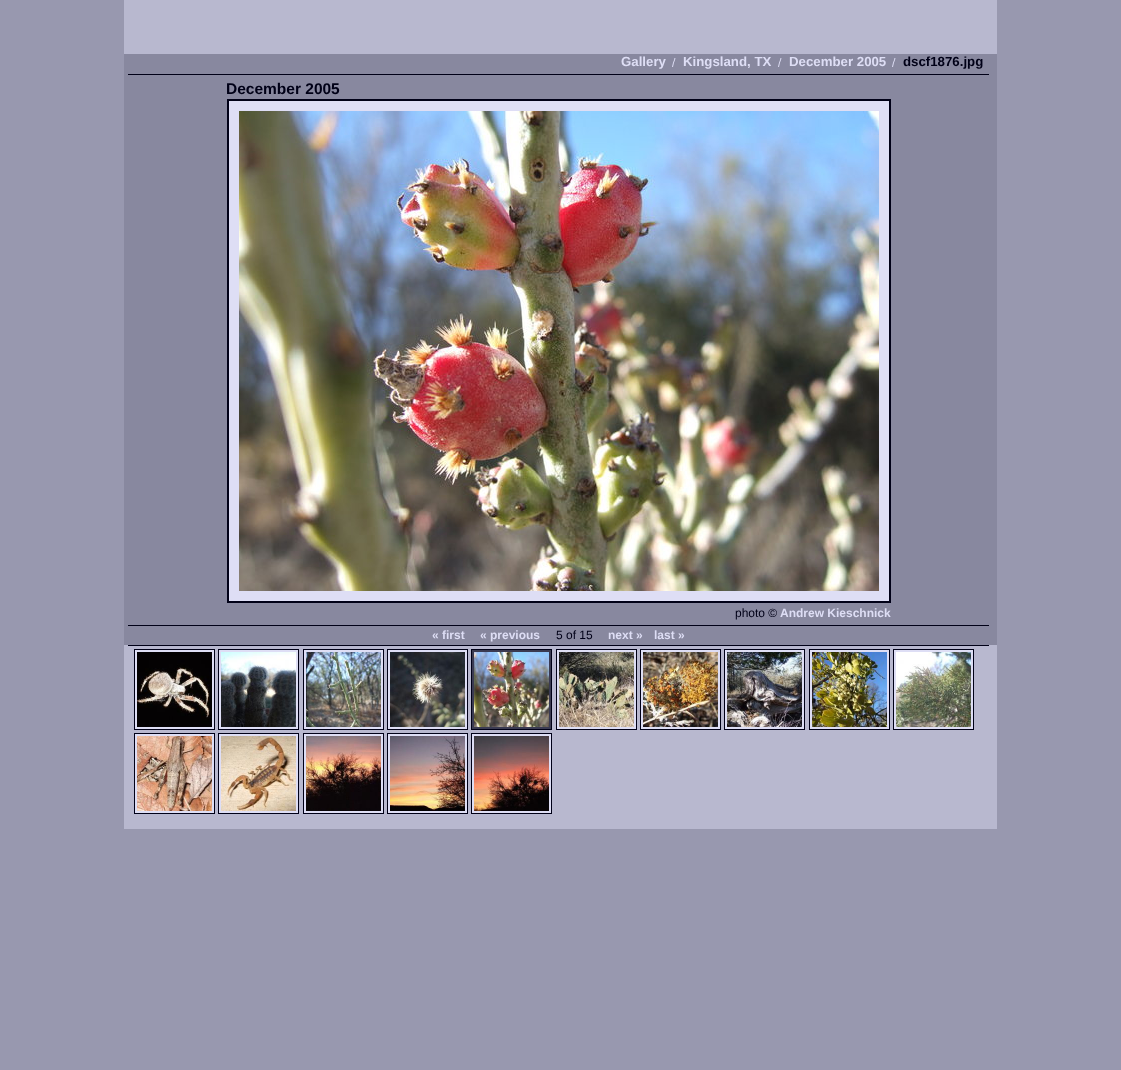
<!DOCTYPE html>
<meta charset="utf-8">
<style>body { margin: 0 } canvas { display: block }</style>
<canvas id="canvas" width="1121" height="1070"></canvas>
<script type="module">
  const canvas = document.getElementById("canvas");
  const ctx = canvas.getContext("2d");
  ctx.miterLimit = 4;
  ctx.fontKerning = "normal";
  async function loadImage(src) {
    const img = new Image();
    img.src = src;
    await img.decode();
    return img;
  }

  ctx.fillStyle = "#9898af";
  ctx.fillRect(0, 0, 1121, 1070);
  ctx.fillStyle = "#88889f";
  ctx.fillRect(124, 54, 873, 591);
  ctx.fillStyle = "#b8b8cf";
  ctx.fillRect(124, 0, 873, 54);
  ctx.fillStyle = "#000017";
  ctx.fillRect(128, 74, 861, 1);
  ctx.font = "bold 13.25px Liberation Sans";
  ctx.fillStyle = "#dedef5";
  ctx.fillText("Gallery", 621, 66);
  ctx.drawImage(await loadImage("img1.png"), 672, 58, 4, 9);
  ctx.fillText("Kingsland, TX", 683, 66);
  ctx.drawImage(await loadImage("img1.png"), 778, 58, 4, 9);
  ctx.fillText("December 2005", 789, 66);
  ctx.drawImage(await loadImage("img1.png"), 892, 58, 4, 9);
  ctx.fillStyle = "#000017";
  ctx.fillText("dscf1876.jpg", 903, 66);
  ctx.font = "bold 15.5px Liberation Sans";
  ctx.fillText("December 2005", 226, 94);
  ctx.fillStyle = "#dedef5";
  ctx.fillRect(229, 101, 660, 500);
  ctx.drawImage(await loadImage("img2.png"), 239, 111, 640, 480);
  ctx.strokeStyle = "#000017";
  ctx.lineWidth = 2;
  ctx.strokeRect(228, 100, 662, 502);
  ctx.font = "12px Liberation Sans";
  ctx.fillStyle = "#000017";
  ctx.fillText("photo ©", 735, 617);
  ctx.font = "bold 12px Liberation Sans";
  ctx.fillStyle = "#dedef5";
  ctx.fillText("Andrew Kieschnick", 780, 617);
  ctx.fillStyle = "#000017";
  ctx.fillRect(128, 625, 861, 1);
  ctx.fillStyle = "#dedef5";
  ctx.fillText("« first", 432, 639);
  ctx.fillText("« previous", 480, 639);
  ctx.font = "12px Liberation Sans";
  ctx.fillStyle = "#000017";
  ctx.fillText("5 of 15", 556, 639);
  ctx.font = "bold 12px Liberation Sans";
  ctx.fillStyle = "#dedef5";
  ctx.fillText("next »", 608, 639);
  ctx.fillText("last »", 654, 639);
  ctx.fillStyle = "#b8b8cf";
  ctx.fillRect(124, 645, 873, 184);
  ctx.fillStyle = "#000017";
  ctx.fillRect(128, 645, 861, 1);
  ctx.fillStyle = "#dedef5";
  ctx.fillRect(135, 650, 79, 79);
  ctx.drawImage(await loadImage("img3.png"), 137, 652, 75, 75);
  ctx.lineWidth = 1;
  ctx.strokeRect(134.5, 649.5, 80, 80);
  ctx.fillRect(219, 650, 79, 79);
  ctx.drawImage(await loadImage("img4.png"), 221, 652, 75, 75);
  ctx.strokeRect(218.5, 649.5, 80, 80);
  ctx.fillRect(304, 650, 79, 79);
  ctx.drawImage(await loadImage("img5.png"), 306, 652, 75, 75);
  ctx.strokeRect(303.5, 649.5, 80, 80);
  ctx.fillRect(388, 650, 79, 79);
  ctx.drawImage(await loadImage("img6.png"), 390, 652, 75, 75);
  ctx.strokeRect(387.5, 649.5, 80, 80);
  ctx.fillStyle = "#3b3b52";
  ctx.fillRect(472, 650, 79, 79);
  ctx.drawImage(await loadImage("img7.png"), 474, 652, 75, 75);
  ctx.strokeRect(471.5, 649.5, 80, 80);
  ctx.fillStyle = "#dedef5";
  ctx.fillRect(557, 650, 79, 79);
  ctx.drawImage(await loadImage("img8.png"), 559, 652, 75, 75);
  ctx.strokeRect(556.5, 649.5, 80, 80);
  ctx.fillRect(641, 650, 79, 79);
  ctx.drawImage(await loadImage("img9.png"), 643, 652, 75, 75);
  ctx.strokeRect(640.5, 649.5, 80, 80);
  ctx.fillRect(725, 650, 79, 79);
  ctx.drawImage(await loadImage("img10.png"), 727, 652, 75, 75);
  ctx.strokeRect(724.5, 649.5, 80, 80);
  ctx.fillRect(810, 650, 79, 79);
  ctx.drawImage(await loadImage("img11.png"), 812, 652, 75, 75);
  ctx.strokeRect(809.5, 649.5, 80, 80);
  ctx.fillRect(894, 650, 79, 79);
  ctx.drawImage(await loadImage("img12.png"), 896, 652, 75, 75);
  ctx.strokeRect(893.5, 649.5, 80, 80);
  ctx.fillRect(135, 734, 79, 79);
  ctx.drawImage(await loadImage("img13.png"), 137, 736, 75, 75);
  ctx.strokeRect(134.5, 733.5, 80, 80);
  ctx.fillRect(219, 734, 79, 79);
  ctx.drawImage(await loadImage("img14.png"), 221, 736, 75, 75);
  ctx.strokeRect(218.5, 733.5, 80, 80);
  ctx.fillRect(304, 734, 79, 79);
  ctx.drawImage(await loadImage("img15.png"), 306, 736, 75, 75);
  ctx.strokeRect(303.5, 733.5, 80, 80);
  ctx.fillRect(388, 734, 79, 79);
  ctx.drawImage(await loadImage("img16.png"), 390, 736, 75, 75);
  ctx.strokeRect(387.5, 733.5, 80, 80);
  ctx.fillRect(472, 734, 79, 79);
  ctx.drawImage(await loadImage("img17.png"), 474, 736, 75, 75);
  ctx.strokeRect(471.5, 733.5, 80, 80);
</script>
